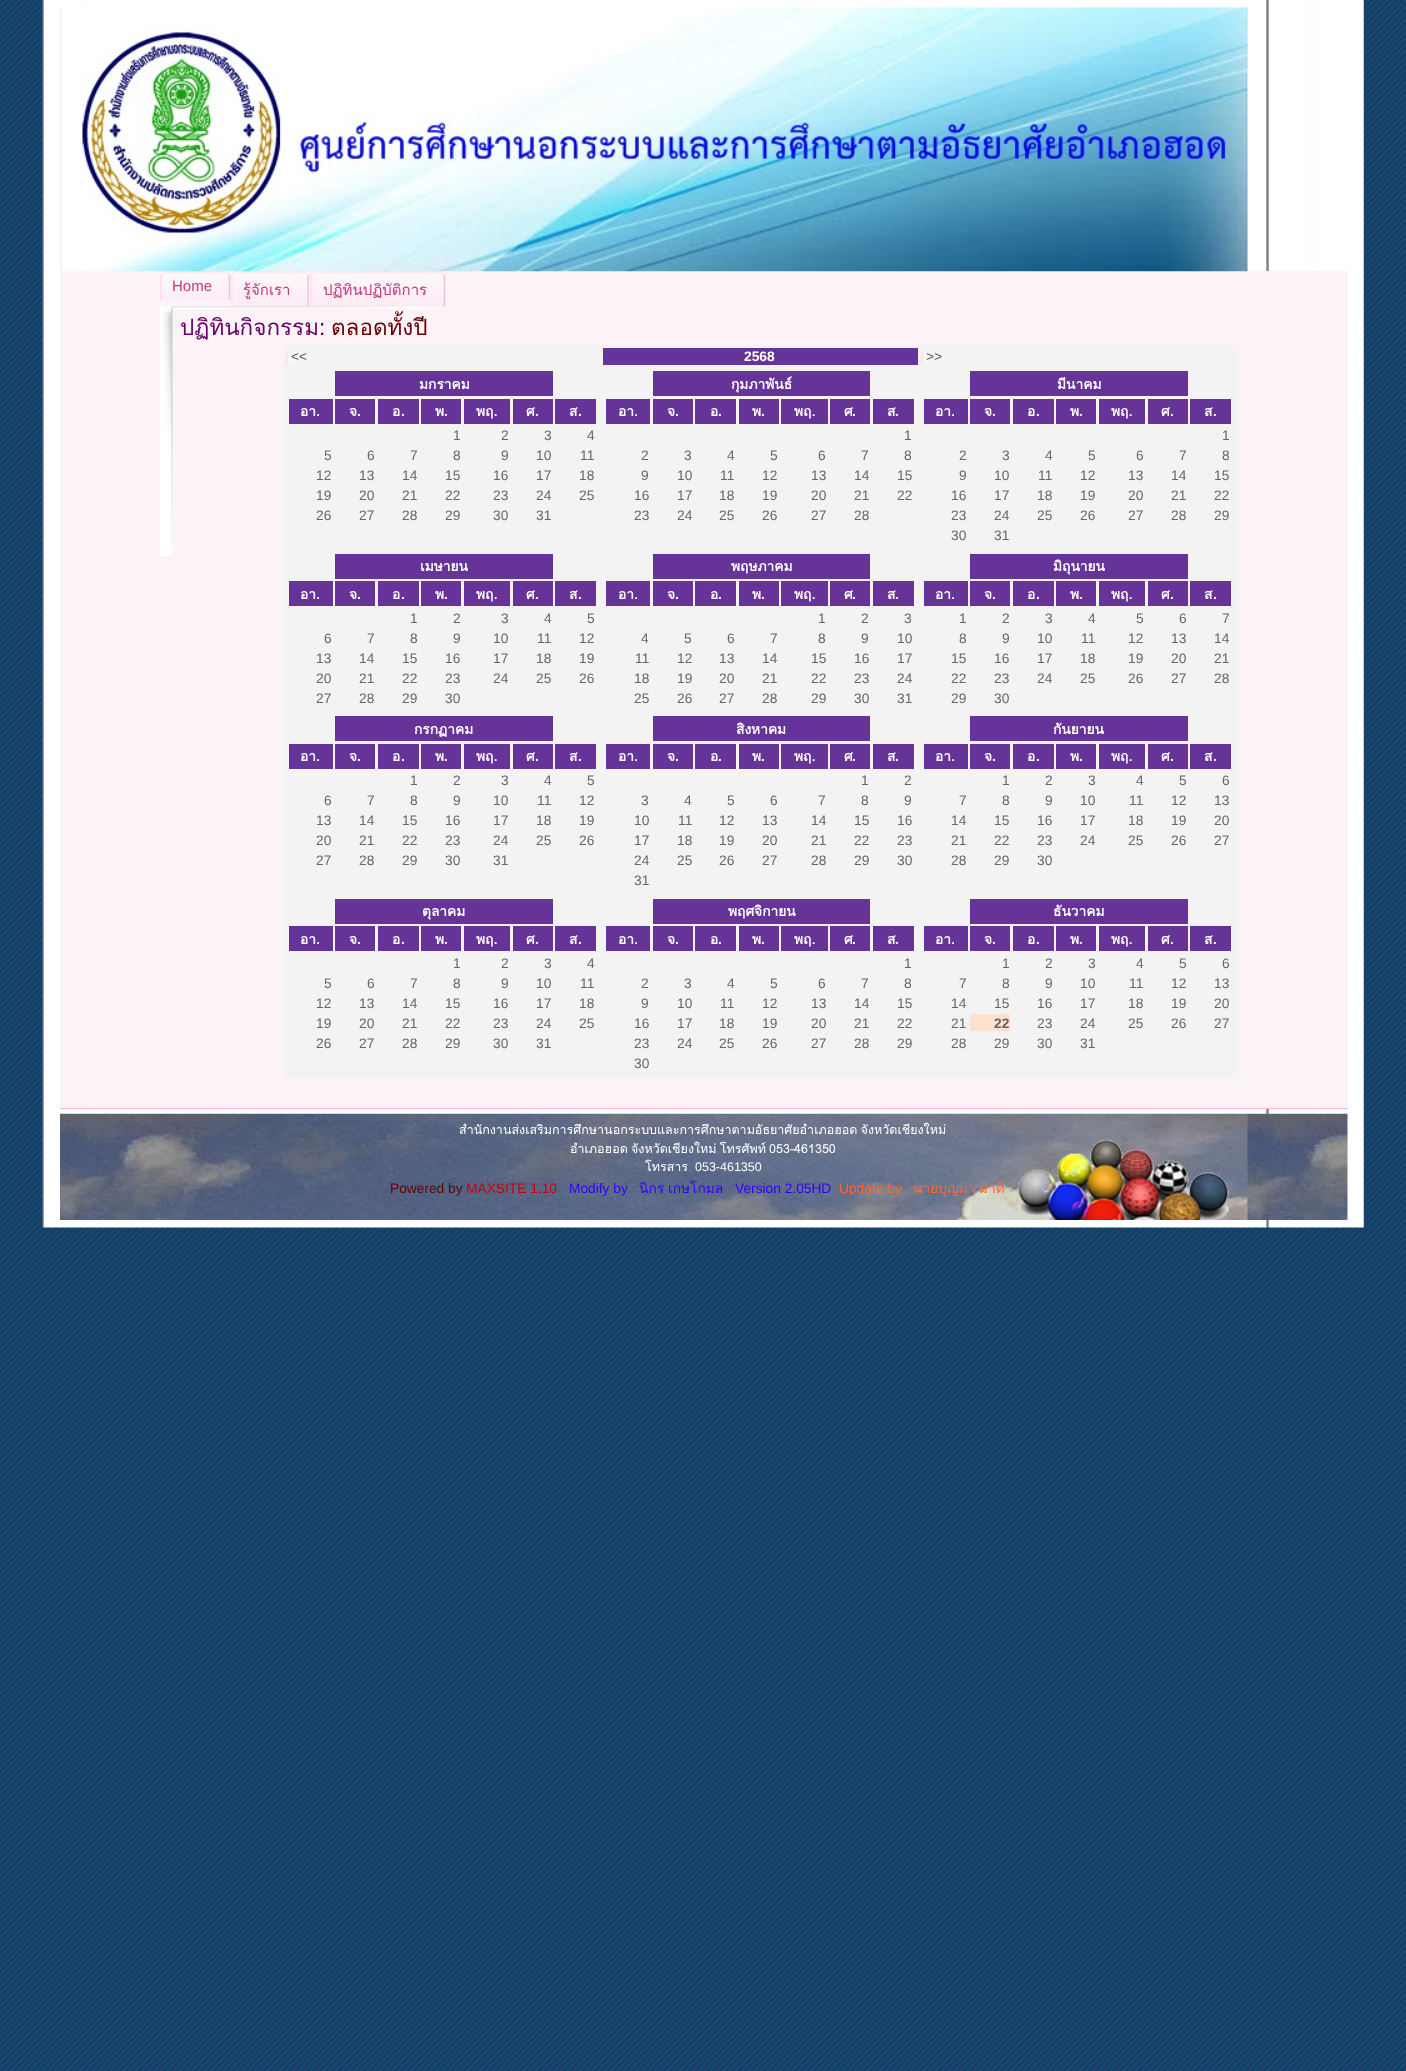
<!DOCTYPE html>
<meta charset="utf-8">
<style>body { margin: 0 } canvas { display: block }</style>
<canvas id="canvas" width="1406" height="2071"></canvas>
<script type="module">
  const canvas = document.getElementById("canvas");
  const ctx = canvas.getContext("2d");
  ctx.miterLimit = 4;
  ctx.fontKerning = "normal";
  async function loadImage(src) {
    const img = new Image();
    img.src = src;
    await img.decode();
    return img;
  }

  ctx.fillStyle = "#ffffff";
  ctx.fillRect(0, 0, 1406, 2071);
  ctx.drawImage(await loadImage("img1.png"), 0, 0, 1406, 2071);
  ctx.drawImage(await loadImage("img2.png"), 42, 0, 1322, 1228);
  ctx.fillStyle = "#fcf3f8";
  ctx.fillRect(60, 271, 1288, 837);
  ctx.drawImage(await loadImage("img4.png"), 160, 271, 6, 29);
  ctx.drawImage(await loadImage("img5.png"), 166, 271, 65, 29);
  ctx.drawImage(await loadImage("img6.png"), 231, 271, 5, 35);
  ctx.drawImage(await loadImage("img7.png"), 236, 271, 73, 36);
  ctx.drawImage(await loadImage("img8.png"), 310, 271, 5, 36);
  ctx.drawImage(await loadImage("img9.png"), 315, 271, 131, 36);
  ctx.drawImage(await loadImage("img3.png"), 60, 7, 1188, 265);
  ctx.fillStyle = "#f4b7d6";
  ctx.fillRect(60, 1108, 1288, 1);
  ctx.font = "15px Liberation Sans";
  ctx.fillStyle = "#c7377d";
  ctx.fillText("Home", 172, 291);
  ctx.font = "15px Loma";
  ctx.fillText("รู้จักเรา", 243, 295);
  ctx.fillText("ปฏิทินปฏิบัติการ", 323, 295);
  ctx.drawImage(await loadImage("img10.png"), 160, 306, 13, 250);
  ctx.drawImage(await loadImage("img11.png"), 172, 306, 251, 3);
  ctx.font = "22.5px Loma";
  ctx.fillStyle = "#660066";
  ctx.fillText("ปฏิทินกิจกรรม", 180, 335);
  ctx.font = "22.5px Liberation Sans";
  ctx.fillStyle = "#660000";
  ctx.fillText(":", 319, 335);
  ctx.font = "22.5px Loma";
  ctx.fillText("ตลอดทั้งปี", 331, 335);
  ctx.fillStyle = "#f3f3f3";
  ctx.fillRect(283, 345, 955, 733);
  ctx.drawImage(await loadImage("img12.png"), 286, 349, 7, 15);
  ctx.font = "13.75px Liberation Sans";
  ctx.fillStyle = "#58595b";
  ctx.fillText("<<", 291, 361);
  ctx.fillStyle = "#663399";
  ctx.fillRect(603, 348, 315, 17);
  ctx.font = "bold 13.75px Liberation Sans";
  ctx.fillStyle = "#ffffff";
  ctx.fillText("2568", 744, 361);
  ctx.drawImage(await loadImage("img12.png"), 921, 349, 7, 15);
  ctx.font = "13.75px Liberation Sans";
  ctx.fillStyle = "#58595b";
  ctx.fillText(">>", 926, 361);
  ctx.fillStyle = "#663399";
  ctx.fillRect(335, 371, 218, 25);
  ctx.font = "bold 13.75px Loma";
  ctx.fillStyle = "#ffffff";
  ctx.fillText("มกราคม", 419, 389);
  ctx.fillStyle = "#663399";
  ctx.fillRect(289, 399, 44, 25);
  ctx.fillStyle = "#ffffff";
  ctx.fillText("อา.", 300, 416);
  ctx.fillStyle = "#663399";
  ctx.fillRect(335, 399, 40, 25);
  ctx.fillStyle = "#ffffff";
  ctx.fillText("จ", 349, 416);
  ctx.font = "bold 13.75px Liberation Sans";
  ctx.fillText(".", 357, 416);
  ctx.fillStyle = "#663399";
  ctx.fillRect(378, 399, 41, 25);
  ctx.font = "bold 13.75px Loma";
  ctx.fillStyle = "#ffffff";
  ctx.fillText("อ", 392, 416);
  ctx.font = "bold 13.75px Liberation Sans";
  ctx.fillText(".", 401, 416);
  ctx.fillStyle = "#663399";
  ctx.fillRect(421, 399, 40, 25);
  ctx.font = "bold 13.75px Loma";
  ctx.fillStyle = "#ffffff";
  ctx.fillText("พ", 435, 416);
  ctx.font = "bold 13.75px Liberation Sans";
  ctx.fillText(".", 444, 416);
  ctx.fillStyle = "#663399";
  ctx.fillRect(464, 399, 46, 25);
  ctx.font = "bold 13.75px Loma";
  ctx.fillStyle = "#ffffff";
  ctx.fillText("พฤ.", 476, 416);
  ctx.fillStyle = "#663399";
  ctx.fillRect(513, 399, 40, 25);
  ctx.fillStyle = "#ffffff";
  ctx.fillText("ศ", 526, 416);
  ctx.font = "bold 13.75px Liberation Sans";
  ctx.fillText(".", 535, 416);
  ctx.fillStyle = "#663399";
  ctx.fillRect(555, 399, 41, 25);
  ctx.font = "bold 13.75px Loma";
  ctx.fillStyle = "#ffffff";
  ctx.fillText("ส", 569, 416);
  ctx.font = "bold 13.75px Liberation Sans";
  ctx.fillText(".", 578, 416);
  ctx.font = "13.75px Liberation Sans";
  ctx.fillStyle = "#666666";
  ctx.fillText("1", 453, 440);
  ctx.fillText("2", 501, 440);
  ctx.fillText("3", 544, 440);
  ctx.fillText("4", 587, 440);
  ctx.fillText("5", 324, 460);
  ctx.fillText("6", 367, 460);
  ctx.fillText("7", 410, 460);
  ctx.fillText("8", 453, 460);
  ctx.fillText("9", 501, 460);
  ctx.fillText("10", 536, 460);
  ctx.fillText("11", 580, 460);
  ctx.fillText("12", 316, 480);
  ctx.fillText("13", 359, 480);
  ctx.fillText("14", 402, 480);
  ctx.fillText("15", 445, 480);
  ctx.fillText("16", 493, 480);
  ctx.fillText("17", 536, 480);
  ctx.fillText("18", 579, 480);
  ctx.fillText("19", 316, 500);
  ctx.fillText("20", 359, 500);
  ctx.fillText("21", 402, 500);
  ctx.fillText("22", 445, 500);
  ctx.fillText("23", 493, 500);
  ctx.fillText("24", 536, 500);
  ctx.fillText("25", 579, 500);
  ctx.fillText("26", 316, 520);
  ctx.fillText("27", 359, 520);
  ctx.fillText("28", 402, 520);
  ctx.fillText("29", 445, 520);
  ctx.fillText("30", 493, 520);
  ctx.fillText("31", 536, 520);
  ctx.fillStyle = "#663399";
  ctx.fillRect(653, 371, 217, 25);
  ctx.font = "bold 13.75px Loma";
  ctx.fillStyle = "#ffffff";
  ctx.fillText("กุมภาพันธ์", 731, 389);
  ctx.fillStyle = "#663399";
  ctx.fillRect(606, 399, 44, 25);
  ctx.fillStyle = "#ffffff";
  ctx.fillText("อา.", 618, 416);
  ctx.fillStyle = "#663399";
  ctx.fillRect(653, 399, 40, 25);
  ctx.fillStyle = "#ffffff";
  ctx.fillText("จ", 667, 416);
  ctx.font = "bold 13.75px Liberation Sans";
  ctx.fillText(".", 675, 416);
  ctx.fillStyle = "#663399";
  ctx.fillRect(695, 399, 41, 25);
  ctx.font = "bold 13.75px Loma";
  ctx.fillStyle = "#ffffff";
  ctx.fillText("อ", 710, 416);
  ctx.font = "bold 13.75px Liberation Sans";
  ctx.fillText(".", 718, 416);
  ctx.fillStyle = "#663399";
  ctx.fillRect(739, 399, 40, 25);
  ctx.font = "bold 13.75px Loma";
  ctx.fillStyle = "#ffffff";
  ctx.fillText("พ", 752, 416);
  ctx.font = "bold 13.75px Liberation Sans";
  ctx.fillText(".", 761, 416);
  ctx.fillStyle = "#663399";
  ctx.fillRect(781, 399, 47, 25);
  ctx.font = "bold 13.75px Loma";
  ctx.fillStyle = "#ffffff";
  ctx.fillText("พฤ.", 794, 416);
  ctx.fillStyle = "#663399";
  ctx.fillRect(830, 399, 40, 25);
  ctx.fillStyle = "#ffffff";
  ctx.fillText("ศ", 844, 416);
  ctx.font = "bold 13.75px Liberation Sans";
  ctx.fillText(".", 852, 416);
  ctx.fillStyle = "#663399";
  ctx.fillRect(873, 399, 41, 25);
  ctx.font = "bold 13.75px Loma";
  ctx.fillStyle = "#ffffff";
  ctx.fillText("ส", 887, 416);
  ctx.font = "bold 13.75px Liberation Sans";
  ctx.fillText(".", 895, 416);
  ctx.font = "13.75px Liberation Sans";
  ctx.fillStyle = "#666666";
  ctx.fillText("1", 904, 440);
  ctx.fillText("2", 641, 460);
  ctx.fillText("3", 684, 460);
  ctx.fillText("4", 727, 460);
  ctx.fillText("5", 770, 460);
  ctx.fillText("6", 818, 460);
  ctx.fillText("7", 861, 460);
  ctx.fillText("8", 904, 460);
  ctx.fillText("9", 641, 480);
  ctx.fillText("10", 677, 480);
  ctx.fillText("11", 720, 480);
  ctx.fillText("12", 762, 480);
  ctx.fillText("13", 811, 480);
  ctx.fillText("14", 854, 480);
  ctx.fillText("15", 897, 480);
  ctx.fillText("16", 634, 500);
  ctx.fillText("17", 677, 500);
  ctx.fillText("18", 719, 500);
  ctx.fillText("19", 762, 500);
  ctx.fillText("20", 811, 500);
  ctx.fillText("21", 854, 500);
  ctx.fillText("22", 897, 500);
  ctx.fillText("23", 634, 520);
  ctx.fillText("24", 677, 520);
  ctx.fillText("25", 719, 520);
  ctx.fillText("26", 762, 520);
  ctx.fillText("27", 811, 520);
  ctx.fillText("28", 854, 520);
  ctx.fillStyle = "#663399";
  ctx.fillRect(970, 371, 218, 25);
  ctx.font = "bold 13.75px Loma";
  ctx.fillStyle = "#ffffff";
  ctx.fillText("มีนาคม", 1057, 389);
  ctx.fillStyle = "#663399";
  ctx.fillRect(924, 399, 44, 25);
  ctx.fillStyle = "#ffffff";
  ctx.fillText("อา.", 935, 416);
  ctx.fillStyle = "#663399";
  ctx.fillRect(970, 399, 40, 25);
  ctx.fillStyle = "#ffffff";
  ctx.fillText("จ", 984, 416);
  ctx.font = "bold 13.75px Liberation Sans";
  ctx.fillText(".", 992, 416);
  ctx.fillStyle = "#663399";
  ctx.fillRect(1013, 399, 41, 25);
  ctx.font = "bold 13.75px Loma";
  ctx.fillStyle = "#ffffff";
  ctx.fillText("อ", 1027, 416);
  ctx.font = "bold 13.75px Liberation Sans";
  ctx.fillText(".", 1036, 416);
  ctx.fillStyle = "#663399";
  ctx.fillRect(1056, 399, 40, 25);
  ctx.font = "bold 13.75px Loma";
  ctx.fillStyle = "#ffffff";
  ctx.fillText("พ", 1070, 416);
  ctx.font = "bold 13.75px Liberation Sans";
  ctx.fillText(".", 1079, 416);
  ctx.fillStyle = "#663399";
  ctx.fillRect(1099, 399, 46, 25);
  ctx.font = "bold 13.75px Loma";
  ctx.fillStyle = "#ffffff";
  ctx.fillText("พฤ.", 1111, 416);
  ctx.fillStyle = "#663399";
  ctx.fillRect(1148, 399, 40, 25);
  ctx.fillStyle = "#ffffff";
  ctx.fillText("ศ", 1161, 416);
  ctx.font = "bold 13.75px Liberation Sans";
  ctx.fillText(".", 1170, 416);
  ctx.fillStyle = "#663399";
  ctx.fillRect(1190, 399, 41, 25);
  ctx.font = "bold 13.75px Loma";
  ctx.fillStyle = "#ffffff";
  ctx.fillText("ส", 1204, 416);
  ctx.font = "bold 13.75px Liberation Sans";
  ctx.fillText(".", 1213, 416);
  ctx.font = "13.75px Liberation Sans";
  ctx.fillStyle = "#666666";
  ctx.fillText("1", 1222, 440);
  ctx.fillText("2", 959, 460);
  ctx.fillText("3", 1002, 460);
  ctx.fillText("4", 1045, 460);
  ctx.fillText("5", 1088, 460);
  ctx.fillText("6", 1136, 460);
  ctx.fillText("7", 1179, 460);
  ctx.fillText("8", 1222, 460);
  ctx.fillText("9", 959, 480);
  ctx.fillText("10", 994, 480);
  ctx.fillText("11", 1038, 480);
  ctx.fillText("12", 1080, 480);
  ctx.fillText("13", 1128, 480);
  ctx.fillText("14", 1171, 480);
  ctx.fillText("15", 1214, 480);
  ctx.fillText("16", 951, 500);
  ctx.fillText("17", 994, 500);
  ctx.fillText("18", 1037, 500);
  ctx.fillText("19", 1080, 500);
  ctx.fillText("20", 1128, 500);
  ctx.fillText("21", 1171, 500);
  ctx.fillText("22", 1214, 500);
  ctx.fillText("23", 951, 520);
  ctx.fillText("24", 994, 520);
  ctx.fillText("25", 1037, 520);
  ctx.fillText("26", 1080, 520);
  ctx.fillText("27", 1128, 520);
  ctx.fillText("28", 1171, 520);
  ctx.fillText("29", 1214, 520);
  ctx.fillText("30", 951, 540);
  ctx.fillText("31", 994, 540);
  ctx.fillStyle = "#663399";
  ctx.fillRect(335, 554, 218, 25);
  ctx.font = "bold 13.75px Loma";
  ctx.fillStyle = "#ffffff";
  ctx.fillText("เมษายน", 420, 571);
  ctx.fillStyle = "#663399";
  ctx.fillRect(289, 581, 44, 25);
  ctx.fillStyle = "#ffffff";
  ctx.fillText("อา.", 300, 599);
  ctx.fillStyle = "#663399";
  ctx.fillRect(335, 581, 40, 25);
  ctx.fillStyle = "#ffffff";
  ctx.fillText("จ", 349, 599);
  ctx.font = "bold 13.75px Liberation Sans";
  ctx.fillText(".", 357, 599);
  ctx.fillStyle = "#663399";
  ctx.fillRect(378, 581, 41, 25);
  ctx.font = "bold 13.75px Loma";
  ctx.fillStyle = "#ffffff";
  ctx.fillText("อ", 392, 599);
  ctx.font = "bold 13.75px Liberation Sans";
  ctx.fillText(".", 401, 599);
  ctx.fillStyle = "#663399";
  ctx.fillRect(421, 581, 40, 25);
  ctx.font = "bold 13.75px Loma";
  ctx.fillStyle = "#ffffff";
  ctx.fillText("พ", 435, 599);
  ctx.font = "bold 13.75px Liberation Sans";
  ctx.fillText(".", 444, 599);
  ctx.fillStyle = "#663399";
  ctx.fillRect(464, 581, 46, 25);
  ctx.font = "bold 13.75px Loma";
  ctx.fillStyle = "#ffffff";
  ctx.fillText("พฤ.", 476, 599);
  ctx.fillStyle = "#663399";
  ctx.fillRect(513, 581, 40, 25);
  ctx.fillStyle = "#ffffff";
  ctx.fillText("ศ", 526, 599);
  ctx.font = "bold 13.75px Liberation Sans";
  ctx.fillText(".", 535, 599);
  ctx.fillStyle = "#663399";
  ctx.fillRect(555, 581, 41, 25);
  ctx.font = "bold 13.75px Loma";
  ctx.fillStyle = "#ffffff";
  ctx.fillText("ส", 569, 599);
  ctx.font = "bold 13.75px Liberation Sans";
  ctx.fillText(".", 578, 599);
  ctx.font = "13.75px Liberation Sans";
  ctx.fillStyle = "#666666";
  ctx.fillText("1", 410, 623);
  ctx.fillText("2", 453, 623);
  ctx.fillText("3", 501, 623);
  ctx.fillText("4", 544, 623);
  ctx.fillText("5", 587, 623);
  ctx.fillText("6", 324, 643);
  ctx.fillText("7", 367, 643);
  ctx.fillText("8", 410, 643);
  ctx.fillText("9", 453, 643);
  ctx.fillText("10", 493, 643);
  ctx.fillText("11", 537, 643);
  ctx.fillText("12", 579, 643);
  ctx.fillText("13", 316, 663);
  ctx.fillText("14", 359, 663);
  ctx.fillText("15", 402, 663);
  ctx.fillText("16", 445, 663);
  ctx.fillText("17", 493, 663);
  ctx.fillText("18", 536, 663);
  ctx.fillText("19", 579, 663);
  ctx.fillText("20", 316, 683);
  ctx.fillText("21", 359, 683);
  ctx.fillText("22", 402, 683);
  ctx.fillText("23", 445, 683);
  ctx.fillText("24", 493, 683);
  ctx.fillText("25", 536, 683);
  ctx.fillText("26", 579, 683);
  ctx.fillText("27", 316, 703);
  ctx.fillText("28", 359, 703);
  ctx.fillText("29", 402, 703);
  ctx.fillText("30", 445, 703);
  ctx.fillStyle = "#663399";
  ctx.fillRect(653, 554, 217, 25);
  ctx.font = "bold 13.75px Loma";
  ctx.fillStyle = "#ffffff";
  ctx.fillText("พฤษภาคม", 731, 571);
  ctx.fillStyle = "#663399";
  ctx.fillRect(606, 581, 44, 25);
  ctx.fillStyle = "#ffffff";
  ctx.fillText("อา.", 618, 599);
  ctx.fillStyle = "#663399";
  ctx.fillRect(653, 581, 40, 25);
  ctx.fillStyle = "#ffffff";
  ctx.fillText("จ", 667, 599);
  ctx.font = "bold 13.75px Liberation Sans";
  ctx.fillText(".", 675, 599);
  ctx.fillStyle = "#663399";
  ctx.fillRect(695, 581, 41, 25);
  ctx.font = "bold 13.75px Loma";
  ctx.fillStyle = "#ffffff";
  ctx.fillText("อ", 710, 599);
  ctx.font = "bold 13.75px Liberation Sans";
  ctx.fillText(".", 718, 599);
  ctx.fillStyle = "#663399";
  ctx.fillRect(739, 581, 40, 25);
  ctx.font = "bold 13.75px Loma";
  ctx.fillStyle = "#ffffff";
  ctx.fillText("พ", 752, 599);
  ctx.font = "bold 13.75px Liberation Sans";
  ctx.fillText(".", 761, 599);
  ctx.fillStyle = "#663399";
  ctx.fillRect(781, 581, 47, 25);
  ctx.font = "bold 13.75px Loma";
  ctx.fillStyle = "#ffffff";
  ctx.fillText("พฤ.", 794, 599);
  ctx.fillStyle = "#663399";
  ctx.fillRect(830, 581, 40, 25);
  ctx.fillStyle = "#ffffff";
  ctx.fillText("ศ", 844, 599);
  ctx.font = "bold 13.75px Liberation Sans";
  ctx.fillText(".", 852, 599);
  ctx.fillStyle = "#663399";
  ctx.fillRect(873, 581, 41, 25);
  ctx.font = "bold 13.75px Loma";
  ctx.fillStyle = "#ffffff";
  ctx.fillText("ส", 887, 599);
  ctx.font = "bold 13.75px Liberation Sans";
  ctx.fillText(".", 895, 599);
  ctx.font = "13.75px Liberation Sans";
  ctx.fillStyle = "#666666";
  ctx.fillText("1", 818, 623);
  ctx.fillText("2", 861, 623);
  ctx.fillText("3", 904, 623);
  ctx.fillText("4", 641, 643);
  ctx.fillText("5", 684, 643);
  ctx.fillText("6", 727, 643);
  ctx.fillText("7", 770, 643);
  ctx.fillText("8", 818, 643);
  ctx.fillText("9", 861, 643);
  ctx.fillText("10", 897, 643);
  ctx.fillText("11", 635, 663);
  ctx.fillText("12", 677, 663);
  ctx.fillText("13", 719, 663);
  ctx.fillText("14", 762, 663);
  ctx.fillText("15", 811, 663);
  ctx.fillText("16", 854, 663);
  ctx.fillText("17", 897, 663);
  ctx.fillText("18", 634, 683);
  ctx.fillText("19", 677, 683);
  ctx.fillText("20", 719, 683);
  ctx.fillText("21", 762, 683);
  ctx.fillText("22", 811, 683);
  ctx.fillText("23", 854, 683);
  ctx.fillText("24", 897, 683);
  ctx.fillText("25", 634, 703);
  ctx.fillText("26", 677, 703);
  ctx.fillText("27", 719, 703);
  ctx.fillText("28", 762, 703);
  ctx.fillText("29", 811, 703);
  ctx.fillText("30", 854, 703);
  ctx.fillText("31", 897, 703);
  ctx.fillStyle = "#663399";
  ctx.fillRect(970, 554, 218, 25);
  ctx.font = "bold 13.75px Loma";
  ctx.fillStyle = "#ffffff";
  ctx.fillText("มิถุนายน", 1053, 571);
  ctx.fillStyle = "#663399";
  ctx.fillRect(924, 581, 44, 25);
  ctx.fillStyle = "#ffffff";
  ctx.fillText("อา.", 935, 599);
  ctx.fillStyle = "#663399";
  ctx.fillRect(970, 581, 40, 25);
  ctx.fillStyle = "#ffffff";
  ctx.fillText("จ", 984, 599);
  ctx.font = "bold 13.75px Liberation Sans";
  ctx.fillText(".", 992, 599);
  ctx.fillStyle = "#663399";
  ctx.fillRect(1013, 581, 41, 25);
  ctx.font = "bold 13.75px Loma";
  ctx.fillStyle = "#ffffff";
  ctx.fillText("อ", 1027, 599);
  ctx.font = "bold 13.75px Liberation Sans";
  ctx.fillText(".", 1036, 599);
  ctx.fillStyle = "#663399";
  ctx.fillRect(1056, 581, 40, 25);
  ctx.font = "bold 13.75px Loma";
  ctx.fillStyle = "#ffffff";
  ctx.fillText("พ", 1070, 599);
  ctx.font = "bold 13.75px Liberation Sans";
  ctx.fillText(".", 1079, 599);
  ctx.fillStyle = "#663399";
  ctx.fillRect(1099, 581, 46, 25);
  ctx.font = "bold 13.75px Loma";
  ctx.fillStyle = "#ffffff";
  ctx.fillText("พฤ.", 1111, 599);
  ctx.fillStyle = "#663399";
  ctx.fillRect(1148, 581, 40, 25);
  ctx.fillStyle = "#ffffff";
  ctx.fillText("ศ", 1161, 599);
  ctx.font = "bold 13.75px Liberation Sans";
  ctx.fillText(".", 1170, 599);
  ctx.fillStyle = "#663399";
  ctx.fillRect(1190, 581, 41, 25);
  ctx.font = "bold 13.75px Loma";
  ctx.fillStyle = "#ffffff";
  ctx.fillText("ส", 1204, 599);
  ctx.font = "bold 13.75px Liberation Sans";
  ctx.fillText(".", 1213, 599);
  ctx.font = "13.75px Liberation Sans";
  ctx.fillStyle = "#666666";
  ctx.fillText("1", 959, 623);
  ctx.fillText("2", 1002, 623);
  ctx.fillText("3", 1045, 623);
  ctx.fillText("4", 1088, 623);
  ctx.fillText("5", 1136, 623);
  ctx.fillText("6", 1179, 623);
  ctx.fillText("7", 1222, 623);
  ctx.fillText("8", 959, 643);
  ctx.fillText("9", 1002, 643);
  ctx.fillText("10", 1037, 643);
  ctx.fillText("11", 1081, 643);
  ctx.fillText("12", 1128, 643);
  ctx.fillText("13", 1171, 643);
  ctx.fillText("14", 1214, 643);
  ctx.fillText("15", 951, 663);
  ctx.fillText("16", 994, 663);
  ctx.fillText("17", 1037, 663);
  ctx.fillText("18", 1080, 663);
  ctx.fillText("19", 1128, 663);
  ctx.fillText("20", 1171, 663);
  ctx.fillText("21", 1214, 663);
  ctx.fillText("22", 951, 683);
  ctx.fillText("23", 994, 683);
  ctx.fillText("24", 1037, 683);
  ctx.fillText("25", 1080, 683);
  ctx.fillText("26", 1128, 683);
  ctx.fillText("27", 1171, 683);
  ctx.fillText("28", 1214, 683);
  ctx.fillText("29", 951, 703);
  ctx.fillText("30", 994, 703);
  ctx.fillStyle = "#663399";
  ctx.fillRect(335, 716, 218, 25);
  ctx.font = "bold 13.75px Loma";
  ctx.fillStyle = "#ffffff";
  ctx.fillText("กรกฏาคม", 414, 734);
  ctx.fillStyle = "#663399";
  ctx.fillRect(289, 744, 44, 25);
  ctx.fillStyle = "#ffffff";
  ctx.fillText("อา.", 300, 761);
  ctx.fillStyle = "#663399";
  ctx.fillRect(335, 744, 40, 25);
  ctx.fillStyle = "#ffffff";
  ctx.fillText("จ", 349, 761);
  ctx.font = "bold 13.75px Liberation Sans";
  ctx.fillText(".", 357, 761);
  ctx.fillStyle = "#663399";
  ctx.fillRect(378, 744, 41, 25);
  ctx.font = "bold 13.75px Loma";
  ctx.fillStyle = "#ffffff";
  ctx.fillText("อ", 392, 761);
  ctx.font = "bold 13.75px Liberation Sans";
  ctx.fillText(".", 401, 761);
  ctx.fillStyle = "#663399";
  ctx.fillRect(421, 744, 40, 25);
  ctx.font = "bold 13.75px Loma";
  ctx.fillStyle = "#ffffff";
  ctx.fillText("พ", 435, 761);
  ctx.font = "bold 13.75px Liberation Sans";
  ctx.fillText(".", 444, 761);
  ctx.fillStyle = "#663399";
  ctx.fillRect(464, 744, 46, 25);
  ctx.font = "bold 13.75px Loma";
  ctx.fillStyle = "#ffffff";
  ctx.fillText("พฤ.", 476, 761);
  ctx.fillStyle = "#663399";
  ctx.fillRect(513, 744, 40, 25);
  ctx.fillStyle = "#ffffff";
  ctx.fillText("ศ", 526, 761);
  ctx.font = "bold 13.75px Liberation Sans";
  ctx.fillText(".", 535, 761);
  ctx.fillStyle = "#663399";
  ctx.fillRect(555, 744, 41, 25);
  ctx.font = "bold 13.75px Loma";
  ctx.fillStyle = "#ffffff";
  ctx.fillText("ส", 569, 761);
  ctx.font = "bold 13.75px Liberation Sans";
  ctx.fillText(".", 578, 761);
  ctx.font = "13.75px Liberation Sans";
  ctx.fillStyle = "#666666";
  ctx.fillText("1", 410, 785);
  ctx.fillText("2", 453, 785);
  ctx.fillText("3", 501, 785);
  ctx.fillText("4", 544, 785);
  ctx.fillText("5", 587, 785);
  ctx.fillText("6", 324, 805);
  ctx.fillText("7", 367, 805);
  ctx.fillText("8", 410, 805);
  ctx.fillText("9", 453, 805);
  ctx.fillText("10", 493, 805);
  ctx.fillText("11", 537, 805);
  ctx.fillText("12", 579, 805);
  ctx.fillText("13", 316, 825);
  ctx.fillText("14", 359, 825);
  ctx.fillText("15", 402, 825);
  ctx.fillText("16", 445, 825);
  ctx.fillText("17", 493, 825);
  ctx.fillText("18", 536, 825);
  ctx.fillText("19", 579, 825);
  ctx.fillText("20", 316, 845);
  ctx.fillText("21", 359, 845);
  ctx.fillText("22", 402, 845);
  ctx.fillText("23", 445, 845);
  ctx.fillText("24", 493, 845);
  ctx.fillText("25", 536, 845);
  ctx.fillText("26", 579, 845);
  ctx.fillText("27", 316, 865);
  ctx.fillText("28", 359, 865);
  ctx.fillText("29", 402, 865);
  ctx.fillText("30", 445, 865);
  ctx.fillText("31", 493, 865);
  ctx.fillStyle = "#663399";
  ctx.fillRect(653, 716, 217, 25);
  ctx.font = "bold 13.75px Loma";
  ctx.fillStyle = "#ffffff";
  ctx.fillText("สิงหาคม", 736, 734);
  ctx.fillStyle = "#663399";
  ctx.fillRect(606, 744, 44, 25);
  ctx.fillStyle = "#ffffff";
  ctx.fillText("อา.", 618, 761);
  ctx.fillStyle = "#663399";
  ctx.fillRect(653, 744, 40, 25);
  ctx.fillStyle = "#ffffff";
  ctx.fillText("จ", 667, 761);
  ctx.font = "bold 13.75px Liberation Sans";
  ctx.fillText(".", 675, 761);
  ctx.fillStyle = "#663399";
  ctx.fillRect(695, 744, 41, 25);
  ctx.font = "bold 13.75px Loma";
  ctx.fillStyle = "#ffffff";
  ctx.fillText("อ", 710, 761);
  ctx.font = "bold 13.75px Liberation Sans";
  ctx.fillText(".", 718, 761);
  ctx.fillStyle = "#663399";
  ctx.fillRect(739, 744, 40, 25);
  ctx.font = "bold 13.75px Loma";
  ctx.fillStyle = "#ffffff";
  ctx.fillText("พ", 752, 761);
  ctx.font = "bold 13.75px Liberation Sans";
  ctx.fillText(".", 761, 761);
  ctx.fillStyle = "#663399";
  ctx.fillRect(781, 744, 47, 25);
  ctx.font = "bold 13.75px Loma";
  ctx.fillStyle = "#ffffff";
  ctx.fillText("พฤ.", 794, 761);
  ctx.fillStyle = "#663399";
  ctx.fillRect(830, 744, 40, 25);
  ctx.fillStyle = "#ffffff";
  ctx.fillText("ศ", 844, 761);
  ctx.font = "bold 13.75px Liberation Sans";
  ctx.fillText(".", 852, 761);
  ctx.fillStyle = "#663399";
  ctx.fillRect(873, 744, 41, 25);
  ctx.font = "bold 13.75px Loma";
  ctx.fillStyle = "#ffffff";
  ctx.fillText("ส", 887, 761);
  ctx.font = "bold 13.75px Liberation Sans";
  ctx.fillText(".", 895, 761);
  ctx.font = "13.75px Liberation Sans";
  ctx.fillStyle = "#666666";
  ctx.fillText("1", 861, 785);
  ctx.fillText("2", 904, 785);
  ctx.fillText("3", 641, 805);
  ctx.fillText("4", 684, 805);
  ctx.fillText("5", 727, 805);
  ctx.fillText("6", 770, 805);
  ctx.fillText("7", 818, 805);
  ctx.fillText("8", 861, 805);
  ctx.fillText("9", 904, 805);
  ctx.fillText("10", 634, 825);
  ctx.fillText("11", 678, 825);
  ctx.fillText("12", 719, 825);
  ctx.fillText("13", 762, 825);
  ctx.fillText("14", 811, 825);
  ctx.fillText("15", 854, 825);
  ctx.fillText("16", 897, 825);
  ctx.fillText("17", 634, 845);
  ctx.fillText("18", 677, 845);
  ctx.fillText("19", 719, 845);
  ctx.fillText("20", 762, 845);
  ctx.fillText("21", 811, 845);
  ctx.fillText("22", 854, 845);
  ctx.fillText("23", 897, 845);
  ctx.fillText("24", 634, 865);
  ctx.fillText("25", 677, 865);
  ctx.fillText("26", 719, 865);
  ctx.fillText("27", 762, 865);
  ctx.fillText("28", 811, 865);
  ctx.fillText("29", 854, 865);
  ctx.fillText("30", 897, 865);
  ctx.fillText("31", 634, 885);
  ctx.fillStyle = "#663399";
  ctx.fillRect(970, 716, 218, 25);
  ctx.font = "bold 13.75px Loma";
  ctx.fillStyle = "#ffffff";
  ctx.fillText("กันยายน", 1053, 734);
  ctx.fillStyle = "#663399";
  ctx.fillRect(924, 744, 44, 25);
  ctx.fillStyle = "#ffffff";
  ctx.fillText("อา.", 935, 761);
  ctx.fillStyle = "#663399";
  ctx.fillRect(970, 744, 40, 25);
  ctx.fillStyle = "#ffffff";
  ctx.fillText("จ", 984, 761);
  ctx.font = "bold 13.75px Liberation Sans";
  ctx.fillText(".", 992, 761);
  ctx.fillStyle = "#663399";
  ctx.fillRect(1013, 744, 41, 25);
  ctx.font = "bold 13.75px Loma";
  ctx.fillStyle = "#ffffff";
  ctx.fillText("อ", 1027, 761);
  ctx.font = "bold 13.75px Liberation Sans";
  ctx.fillText(".", 1036, 761);
  ctx.fillStyle = "#663399";
  ctx.fillRect(1056, 744, 40, 25);
  ctx.font = "bold 13.75px Loma";
  ctx.fillStyle = "#ffffff";
  ctx.fillText("พ", 1070, 761);
  ctx.font = "bold 13.75px Liberation Sans";
  ctx.fillText(".", 1079, 761);
  ctx.fillStyle = "#663399";
  ctx.fillRect(1099, 744, 46, 25);
  ctx.font = "bold 13.75px Loma";
  ctx.fillStyle = "#ffffff";
  ctx.fillText("พฤ.", 1111, 761);
  ctx.fillStyle = "#663399";
  ctx.fillRect(1148, 744, 40, 25);
  ctx.fillStyle = "#ffffff";
  ctx.fillText("ศ", 1161, 761);
  ctx.font = "bold 13.75px Liberation Sans";
  ctx.fillText(".", 1170, 761);
  ctx.fillStyle = "#663399";
  ctx.fillRect(1190, 744, 41, 25);
  ctx.font = "bold 13.75px Loma";
  ctx.fillStyle = "#ffffff";
  ctx.fillText("ส", 1204, 761);
  ctx.font = "bold 13.75px Liberation Sans";
  ctx.fillText(".", 1213, 761);
  ctx.font = "13.75px Liberation Sans";
  ctx.fillStyle = "#666666";
  ctx.fillText("1", 1002, 785);
  ctx.fillText("2", 1045, 785);
  ctx.fillText("3", 1088, 785);
  ctx.fillText("4", 1136, 785);
  ctx.fillText("5", 1179, 785);
  ctx.fillText("6", 1222, 785);
  ctx.fillText("7", 959, 805);
  ctx.fillText("8", 1002, 805);
  ctx.fillText("9", 1045, 805);
  ctx.fillText("10", 1080, 805);
  ctx.fillText("11", 1129, 805);
  ctx.fillText("12", 1171, 805);
  ctx.fillText("13", 1214, 805);
  ctx.fillText("14", 951, 825);
  ctx.fillText("15", 994, 825);
  ctx.fillText("16", 1037, 825);
  ctx.fillText("17", 1080, 825);
  ctx.fillText("18", 1128, 825);
  ctx.fillText("19", 1171, 825);
  ctx.fillText("20", 1214, 825);
  ctx.fillText("21", 951, 845);
  ctx.fillText("22", 994, 845);
  ctx.fillText("23", 1037, 845);
  ctx.fillText("24", 1080, 845);
  ctx.fillText("25", 1128, 845);
  ctx.fillText("26", 1171, 845);
  ctx.fillText("27", 1214, 845);
  ctx.fillText("28", 951, 865);
  ctx.fillText("29", 994, 865);
  ctx.fillText("30", 1037, 865);
  ctx.fillStyle = "#663399";
  ctx.fillRect(335, 899, 218, 25);
  ctx.font = "bold 13.75px Loma";
  ctx.fillStyle = "#ffffff";
  ctx.fillText("ตุลาคม", 422, 916);
  ctx.fillStyle = "#663399";
  ctx.fillRect(289, 926, 44, 25);
  ctx.fillStyle = "#ffffff";
  ctx.fillText("อา.", 300, 944);
  ctx.fillStyle = "#663399";
  ctx.fillRect(335, 926, 40, 25);
  ctx.fillStyle = "#ffffff";
  ctx.fillText("จ", 349, 944);
  ctx.font = "bold 13.75px Liberation Sans";
  ctx.fillText(".", 357, 944);
  ctx.fillStyle = "#663399";
  ctx.fillRect(378, 926, 41, 25);
  ctx.font = "bold 13.75px Loma";
  ctx.fillStyle = "#ffffff";
  ctx.fillText("อ", 392, 944);
  ctx.font = "bold 13.75px Liberation Sans";
  ctx.fillText(".", 401, 944);
  ctx.fillStyle = "#663399";
  ctx.fillRect(421, 926, 40, 25);
  ctx.font = "bold 13.75px Loma";
  ctx.fillStyle = "#ffffff";
  ctx.fillText("พ", 435, 944);
  ctx.font = "bold 13.75px Liberation Sans";
  ctx.fillText(".", 444, 944);
  ctx.fillStyle = "#663399";
  ctx.fillRect(464, 926, 46, 25);
  ctx.font = "bold 13.75px Loma";
  ctx.fillStyle = "#ffffff";
  ctx.fillText("พฤ.", 476, 944);
  ctx.fillStyle = "#663399";
  ctx.fillRect(513, 926, 40, 25);
  ctx.fillStyle = "#ffffff";
  ctx.fillText("ศ", 526, 944);
  ctx.font = "bold 13.75px Liberation Sans";
  ctx.fillText(".", 535, 944);
  ctx.fillStyle = "#663399";
  ctx.fillRect(555, 926, 41, 25);
  ctx.font = "bold 13.75px Loma";
  ctx.fillStyle = "#ffffff";
  ctx.fillText("ส", 569, 944);
  ctx.font = "bold 13.75px Liberation Sans";
  ctx.fillText(".", 578, 944);
  ctx.font = "13.75px Liberation Sans";
  ctx.fillStyle = "#666666";
  ctx.fillText("1", 453, 968);
  ctx.fillText("2", 501, 968);
  ctx.fillText("3", 544, 968);
  ctx.fillText("4", 587, 968);
  ctx.fillText("5", 324, 988);
  ctx.fillText("6", 367, 988);
  ctx.fillText("7", 410, 988);
  ctx.fillText("8", 453, 988);
  ctx.fillText("9", 501, 988);
  ctx.fillText("10", 536, 988);
  ctx.fillText("11", 580, 988);
  ctx.fillText("12", 316, 1008);
  ctx.fillText("13", 359, 1008);
  ctx.fillText("14", 402, 1008);
  ctx.fillText("15", 445, 1008);
  ctx.fillText("16", 493, 1008);
  ctx.fillText("17", 536, 1008);
  ctx.fillText("18", 579, 1008);
  ctx.fillText("19", 316, 1028);
  ctx.fillText("20", 359, 1028);
  ctx.fillText("21", 402, 1028);
  ctx.fillText("22", 445, 1028);
  ctx.fillText("23", 493, 1028);
  ctx.fillText("24", 536, 1028);
  ctx.fillText("25", 579, 1028);
  ctx.fillText("26", 316, 1048);
  ctx.fillText("27", 359, 1048);
  ctx.fillText("28", 402, 1048);
  ctx.fillText("29", 445, 1048);
  ctx.fillText("30", 493, 1048);
  ctx.fillText("31", 536, 1048);
  ctx.fillStyle = "#663399";
  ctx.fillRect(653, 899, 217, 25);
  ctx.font = "bold 13.75px Loma";
  ctx.fillStyle = "#ffffff";
  ctx.fillText("พฤศจิกายน", 728, 916);
  ctx.fillStyle = "#663399";
  ctx.fillRect(606, 926, 44, 25);
  ctx.fillStyle = "#ffffff";
  ctx.fillText("อา.", 618, 944);
  ctx.fillStyle = "#663399";
  ctx.fillRect(653, 926, 40, 25);
  ctx.fillStyle = "#ffffff";
  ctx.fillText("จ", 667, 944);
  ctx.font = "bold 13.75px Liberation Sans";
  ctx.fillText(".", 675, 944);
  ctx.fillStyle = "#663399";
  ctx.fillRect(695, 926, 41, 25);
  ctx.font = "bold 13.75px Loma";
  ctx.fillStyle = "#ffffff";
  ctx.fillText("อ", 710, 944);
  ctx.font = "bold 13.75px Liberation Sans";
  ctx.fillText(".", 718, 944);
  ctx.fillStyle = "#663399";
  ctx.fillRect(739, 926, 40, 25);
  ctx.font = "bold 13.75px Loma";
  ctx.fillStyle = "#ffffff";
  ctx.fillText("พ", 752, 944);
  ctx.font = "bold 13.75px Liberation Sans";
  ctx.fillText(".", 761, 944);
  ctx.fillStyle = "#663399";
  ctx.fillRect(781, 926, 47, 25);
  ctx.font = "bold 13.75px Loma";
  ctx.fillStyle = "#ffffff";
  ctx.fillText("พฤ.", 794, 944);
  ctx.fillStyle = "#663399";
  ctx.fillRect(830, 926, 40, 25);
  ctx.fillStyle = "#ffffff";
  ctx.fillText("ศ", 844, 944);
  ctx.font = "bold 13.75px Liberation Sans";
  ctx.fillText(".", 852, 944);
  ctx.fillStyle = "#663399";
  ctx.fillRect(873, 926, 41, 25);
  ctx.font = "bold 13.75px Loma";
  ctx.fillStyle = "#ffffff";
  ctx.fillText("ส", 887, 944);
  ctx.font = "bold 13.75px Liberation Sans";
  ctx.fillText(".", 895, 944);
  ctx.font = "13.75px Liberation Sans";
  ctx.fillStyle = "#666666";
  ctx.fillText("1", 904, 968);
  ctx.fillText("2", 641, 988);
  ctx.fillText("3", 684, 988);
  ctx.fillText("4", 727, 988);
  ctx.fillText("5", 770, 988);
  ctx.fillText("6", 818, 988);
  ctx.fillText("7", 861, 988);
  ctx.fillText("8", 904, 988);
  ctx.fillText("9", 641, 1008);
  ctx.fillText("10", 677, 1008);
  ctx.fillText("11", 720, 1008);
  ctx.fillText("12", 762, 1008);
  ctx.fillText("13", 811, 1008);
  ctx.fillText("14", 854, 1008);
  ctx.fillText("15", 897, 1008);
  ctx.fillText("16", 634, 1028);
  ctx.fillText("17", 677, 1028);
  ctx.fillText("18", 719, 1028);
  ctx.fillText("19", 762, 1028);
  ctx.fillText("20", 811, 1028);
  ctx.fillText("21", 854, 1028);
  ctx.fillText("22", 897, 1028);
  ctx.fillText("23", 634, 1048);
  ctx.fillText("24", 677, 1048);
  ctx.fillText("25", 719, 1048);
  ctx.fillText("26", 762, 1048);
  ctx.fillText("27", 811, 1048);
  ctx.fillText("28", 854, 1048);
  ctx.fillText("29", 897, 1048);
  ctx.fillText("30", 634, 1068);
  ctx.fillStyle = "#663399";
  ctx.fillRect(970, 899, 218, 25);
  ctx.font = "bold 13.75px Loma";
  ctx.fillStyle = "#ffffff";
  ctx.fillText("ธันวาคม", 1053, 916);
  ctx.fillStyle = "#663399";
  ctx.fillRect(924, 926, 44, 25);
  ctx.fillStyle = "#ffffff";
  ctx.fillText("อา.", 935, 944);
  ctx.fillStyle = "#663399";
  ctx.fillRect(970, 926, 40, 25);
  ctx.fillStyle = "#ffffff";
  ctx.fillText("จ", 984, 944);
  ctx.font = "bold 13.75px Liberation Sans";
  ctx.fillText(".", 992, 944);
  ctx.fillStyle = "#663399";
  ctx.fillRect(1013, 926, 41, 25);
  ctx.font = "bold 13.75px Loma";
  ctx.fillStyle = "#ffffff";
  ctx.fillText("อ", 1027, 944);
  ctx.font = "bold 13.75px Liberation Sans";
  ctx.fillText(".", 1036, 944);
  ctx.fillStyle = "#663399";
  ctx.fillRect(1056, 926, 40, 25);
  ctx.font = "bold 13.75px Loma";
  ctx.fillStyle = "#ffffff";
  ctx.fillText("พ", 1070, 944);
  ctx.font = "bold 13.75px Liberation Sans";
  ctx.fillText(".", 1079, 944);
  ctx.fillStyle = "#663399";
  ctx.fillRect(1099, 926, 46, 25);
  ctx.font = "bold 13.75px Loma";
  ctx.fillStyle = "#ffffff";
  ctx.fillText("พฤ.", 1111, 944);
  ctx.fillStyle = "#663399";
  ctx.fillRect(1148, 926, 40, 25);
  ctx.fillStyle = "#ffffff";
  ctx.fillText("ศ", 1161, 944);
  ctx.font = "bold 13.75px Liberation Sans";
  ctx.fillText(".", 1170, 944);
  ctx.fillStyle = "#663399";
  ctx.fillRect(1190, 926, 41, 25);
  ctx.font = "bold 13.75px Loma";
  ctx.fillStyle = "#ffffff";
  ctx.fillText("ส", 1204, 944);
  ctx.font = "bold 13.75px Liberation Sans";
  ctx.fillText(".", 1213, 944);
  ctx.font = "13.75px Liberation Sans";
  ctx.fillStyle = "#666666";
  ctx.fillText("1", 1002, 968);
  ctx.fillText("2", 1045, 968);
  ctx.fillText("3", 1088, 968);
  ctx.fillText("4", 1136, 968);
  ctx.fillText("5", 1179, 968);
  ctx.fillText("6", 1222, 968);
  ctx.fillText("7", 959, 988);
  ctx.fillText("8", 1002, 988);
  ctx.fillText("9", 1045, 988);
  ctx.fillText("10", 1080, 988);
  ctx.fillText("11", 1129, 988);
  ctx.fillText("12", 1171, 988);
  ctx.fillText("13", 1214, 988);
  ctx.fillText("14", 951, 1008);
  ctx.fillText("15", 994, 1008);
  ctx.fillText("16", 1037, 1008);
  ctx.fillText("17", 1080, 1008);
  ctx.fillText("18", 1128, 1008);
  ctx.fillText("19", 1171, 1008);
  ctx.fillText("20", 1214, 1008);
  ctx.fillText("21", 951, 1028);
  ctx.fillStyle = "#ffe1ce";
  ctx.fillRect(970, 1014, 40, 17);
  ctx.font = "bold 13.75px Liberation Sans";
  ctx.fillStyle = "#666666";
  ctx.fillText("22", 994, 1028);
  ctx.font = "13.75px Liberation Sans";
  ctx.fillText("23", 1037, 1028);
  ctx.fillText("24", 1080, 1028);
  ctx.fillText("25", 1128, 1028);
  ctx.fillText("26", 1171, 1028);
  ctx.fillText("27", 1214, 1028);
  ctx.fillText("28", 951, 1048);
  ctx.fillText("29", 994, 1048);
  ctx.fillText("30", 1037, 1048);
  ctx.fillText("31", 1080, 1048);
  ctx.drawImage(await loadImage("img13.png"), 60, 1113, 1288, 107);
  ctx.wordSpacing = "-1px";
  ctx.font = "12.5px Loma";
  ctx.fillStyle = "#ffffff";
  ctx.fillText("สำนักงานส่งเสริมการศึกษานอกระบบและการศึกษาตามอัธยาศัยอำเภอฮอด จังหวัดเชียงใหม่", 459, 1134);
  ctx.fillText("อำเภอฮอด จังหวัดเชียงใหม่ โทรศัพท์ 053-461350", 570, 1153);
  ctx.wordSpacing = "0px";
  ctx.fillText("โทรสาร", 645, 1171);
  ctx.font = "12.5px Liberation Sans";
  ctx.fillText("053-461350", 695, 1171);
  ctx.font = "13.75px Liberation Sans";
  ctx.fillStyle = "#660000";
  ctx.fillText("Powered by", 390, 1193);
  ctx.fillStyle = "#cc0000";
  ctx.fillText("MAXSITE 1.10", 466, 1193);
  ctx.fillStyle = "#3300ff";
  ctx.fillText("Modify by", 569, 1193);
  ctx.font = "13.75px Loma";
  ctx.fillText("นิกร", 639, 1193);
  ctx.fillText("เกษโกมล", 668, 1193);
  ctx.font = "13.75px Liberation Sans";
  ctx.fillText("Version 2.05HD", 735, 1193);
  ctx.fillStyle = "#ff6633";
  ctx.fillText("Update by", 839, 1193);
  ctx.font = "13.75px Loma";
  ctx.fillText("นายบุญมา", 913, 1193);
  ctx.fillText("มาดี", 979, 1193);
</script>
